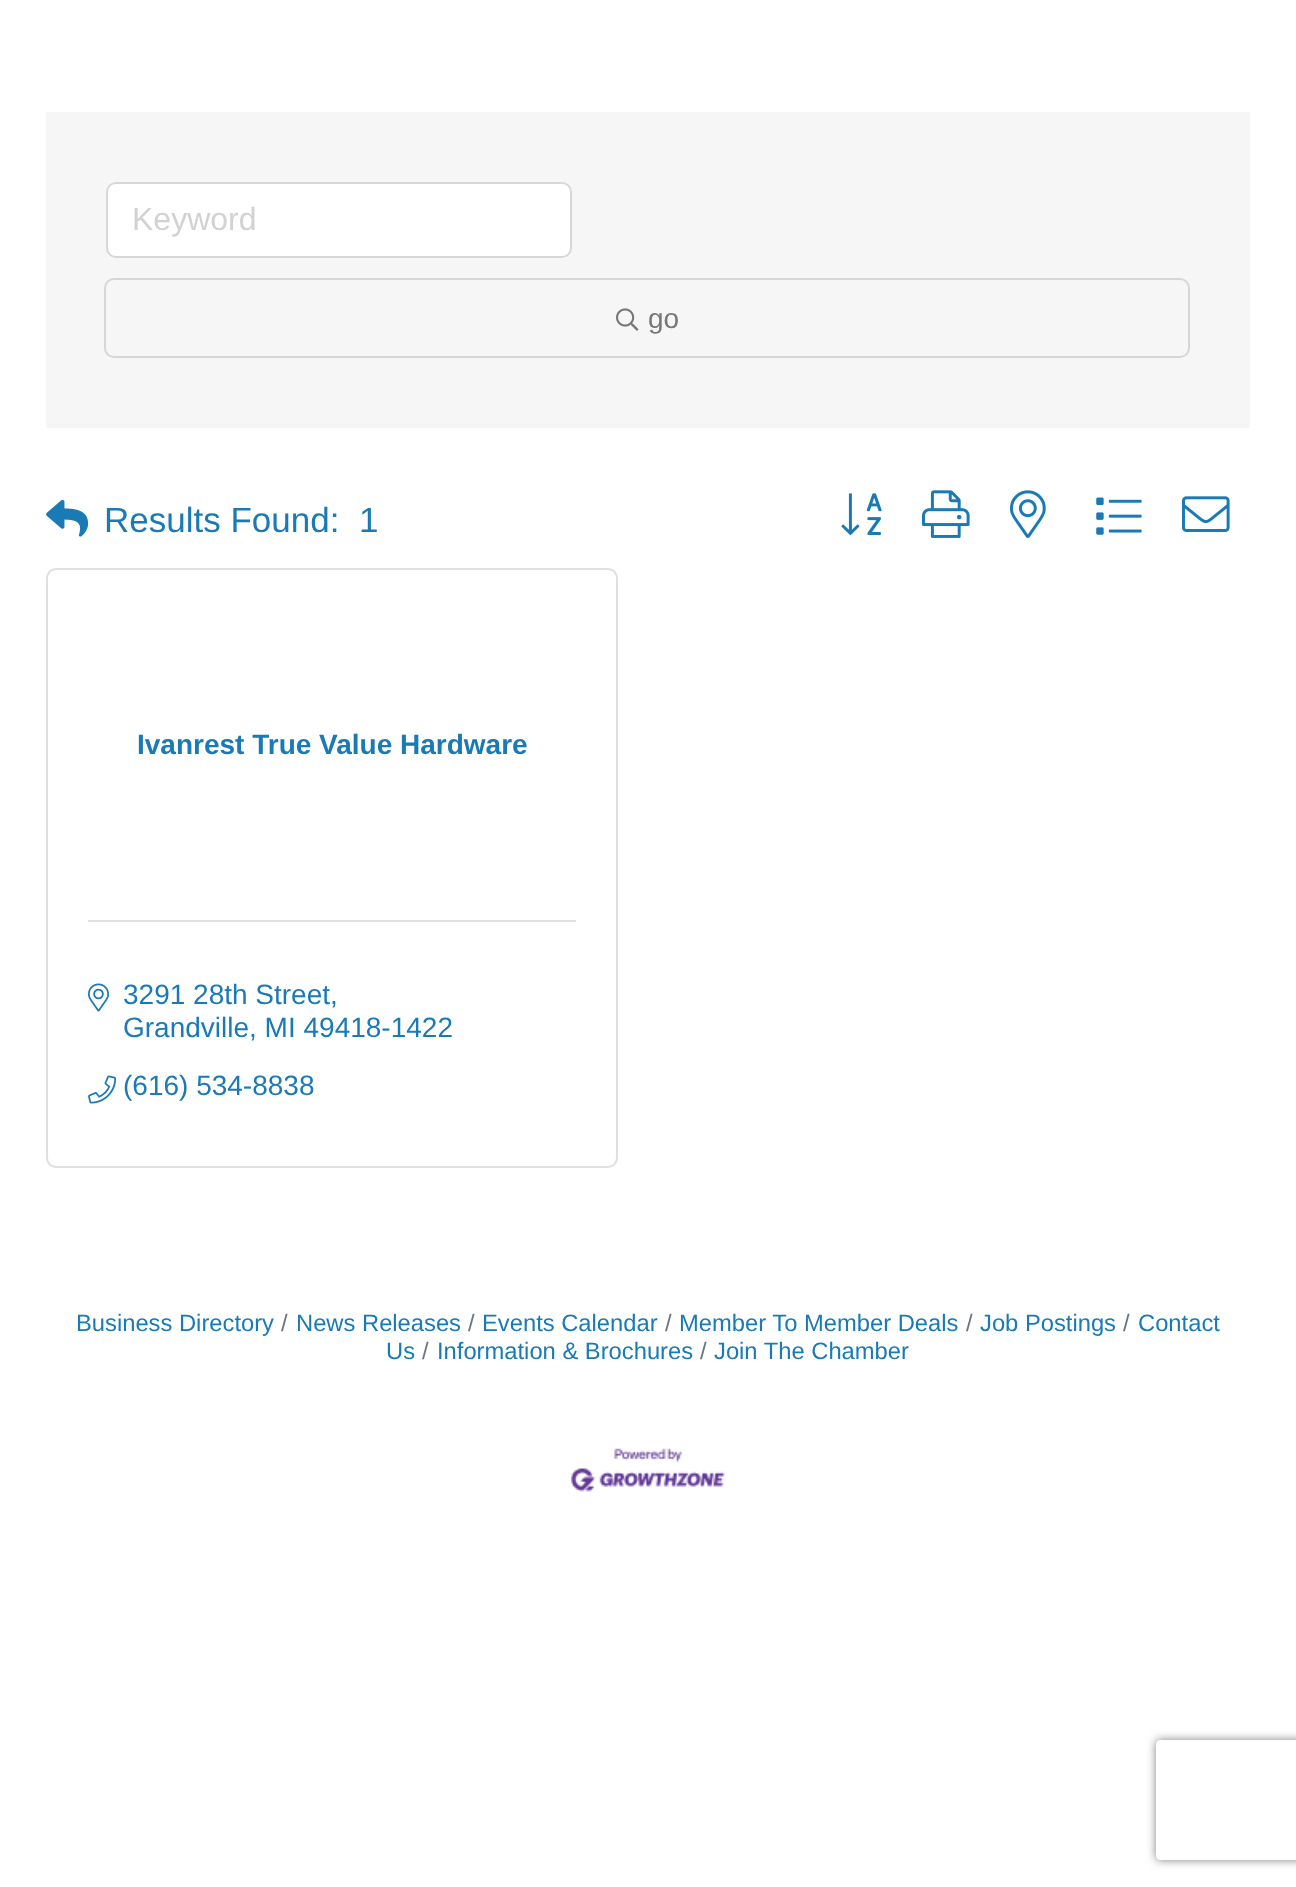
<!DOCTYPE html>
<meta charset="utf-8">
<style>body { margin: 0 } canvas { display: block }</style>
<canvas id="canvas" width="1296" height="1887"></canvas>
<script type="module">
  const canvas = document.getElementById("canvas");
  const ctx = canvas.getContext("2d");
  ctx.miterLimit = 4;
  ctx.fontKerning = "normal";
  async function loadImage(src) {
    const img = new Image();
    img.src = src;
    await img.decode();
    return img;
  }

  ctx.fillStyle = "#ffffff";
  ctx.fillRect(0, 0, 1296, 1887);
  ctx.fillStyle = "#f6f6f6";
  ctx.fillRect(46, 112, 1204, 316);
  ctx.fillStyle = "#ffffff";
  ctx.beginPath();
  ctx.roundRect(107, 183, 464, 74, 9);
  ctx.fill();
  ctx.strokeStyle = "#d7d7d7";
  ctx.lineWidth = 2;
  ctx.stroke();
  ctx.font = "32px Liberation Sans";
  ctx.fillStyle = "#d2d2d2";
  ctx.fillText("Keyword", 132, 230);
  ctx.beginPath();
  ctx.roundRect(105, 279, 1084, 78, 9);
  ctx.strokeStyle = "#d6d6d6";
  ctx.stroke();
  ctx.drawImage(await loadImage("img1.png"), 616, 308, 23, 23);
  ctx.font = "28px Liberation Sans";
  ctx.fillStyle = "#777777";
  ctx.fillText("go", 648, 328);
  ctx.drawImage(await loadImage("img2.png"), 46, 499, 43, 38);
  ctx.font = "35px Liberation Sans";
  ctx.fillStyle = "#197ab5";
  ctx.fillText("Results Found:", 104, 532);
  ctx.fillText("1", 359, 532);
  ctx.drawImage(await loadImage("img3.png"), 841, 493, 41, 42);
  ctx.drawImage(await loadImage("img4.png"), 922, 490, 48, 48);
  ctx.drawImage(await loadImage("img5.png"), 1010, 490, 36, 48);
  ctx.drawImage(await loadImage("img6.png"), 1096, 497, 46, 38);
  ctx.drawImage(await loadImage("img7.png"), 1182, 496, 48, 36);
  ctx.beginPath();
  ctx.roundRect(47, 569, 570, 598, 9);
  ctx.strokeStyle = "#dfdfdf";
  ctx.stroke();
  ctx.font = "bold 28px Liberation Sans";
  ctx.fillText("Ivanrest True Value Hardware", 137, 754);
  ctx.fillStyle = "#dfdfdf";
  ctx.fillRect(88, 920, 488, 2);
  ctx.drawImage(await loadImage("img8.png"), 88, 983, 21, 29);
  ctx.font = "28px Liberation Sans";
  ctx.fillStyle = "#197ab5";
  ctx.fillText("3291 28th Street,", 123, 1004);
  ctx.fillText("Grandville, MI 49418-1422", 123, 1037);
  ctx.drawImage(await loadImage("img9.png"), 88, 1075, 29, 29);
  ctx.fillText("(616) 534-8838", 123, 1095);
  ctx.font = "23.75px Liberation Sans";
  ctx.fillText("Business Directory", 76, 1331);
  ctx.fillStyle = "#6c757d";
  ctx.fillText("/", 281, 1331);
  ctx.fillStyle = "#197ab5";
  ctx.fillText("News Releases", 296, 1331);
  ctx.fillStyle = "#6c757d";
  ctx.fillText("/", 1123, 1331);
  ctx.fillStyle = "#197ab5";
  ctx.fillText("Contact", 1138, 1331);
  ctx.fillText("Us", 386, 1359);
  ctx.fillStyle = "#6c757d";
  ctx.fillText("/", 468, 1331);
  ctx.fillStyle = "#197ab5";
  ctx.fillText("Events Calendar", 482, 1331);
  ctx.fillStyle = "#6c757d";
  ctx.fillText("/", 665, 1331);
  ctx.fillStyle = "#197ab5";
  ctx.fillText("Member To Member Deals", 679, 1331);
  ctx.fillStyle = "#6c757d";
  ctx.fillText("/", 966, 1331);
  ctx.fillStyle = "#197ab5";
  ctx.fillText("Job Postings", 980, 1331);
  ctx.fillStyle = "#6c757d";
  ctx.fillText("/", 422, 1359);
  ctx.fillStyle = "#197ab5";
  ctx.fillText("Information & Brochures", 437, 1359);
  ctx.fillStyle = "#6c757d";
  ctx.fillText("/", 700, 1359);
  ctx.fillStyle = "#197ab5";
  ctx.fillText("Join The Chamber", 714, 1359);
  ctx.drawImage(await loadImage("img10.png"), 570, 1448, 155, 44);
  ctx.save();
  ctx.beginPath();
  ctx.moveTo(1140, 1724);
  ctx.lineTo(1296, 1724);
  ctx.lineTo(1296, 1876);
  ctx.lineTo(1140, 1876);
  ctx.closePath();
  ctx.moveTo(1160, 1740);
  ctx.lineTo(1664, 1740);
  ctx.bezierCurveTo(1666, 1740, 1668, 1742, 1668, 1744);
  ctx.lineTo(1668, 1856);
  ctx.bezierCurveTo(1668, 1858, 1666, 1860, 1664, 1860);
  ctx.lineTo(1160, 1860);
  ctx.bezierCurveTo(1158, 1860, 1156, 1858, 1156, 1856);
  ctx.lineTo(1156, 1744);
  ctx.bezierCurveTo(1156, 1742, 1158, 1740, 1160, 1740);
  ctx.closePath();
  ctx.clip("evenodd");
  ctx.fillStyle = "#808080";
  ctx.filter = "blur(5px)";
  ctx.beginPath();
  ctx.roundRect(1156, 1740, 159, 120, 4);
  ctx.fill();
  ctx.filter = "none";
  ctx.restore();
</script>
